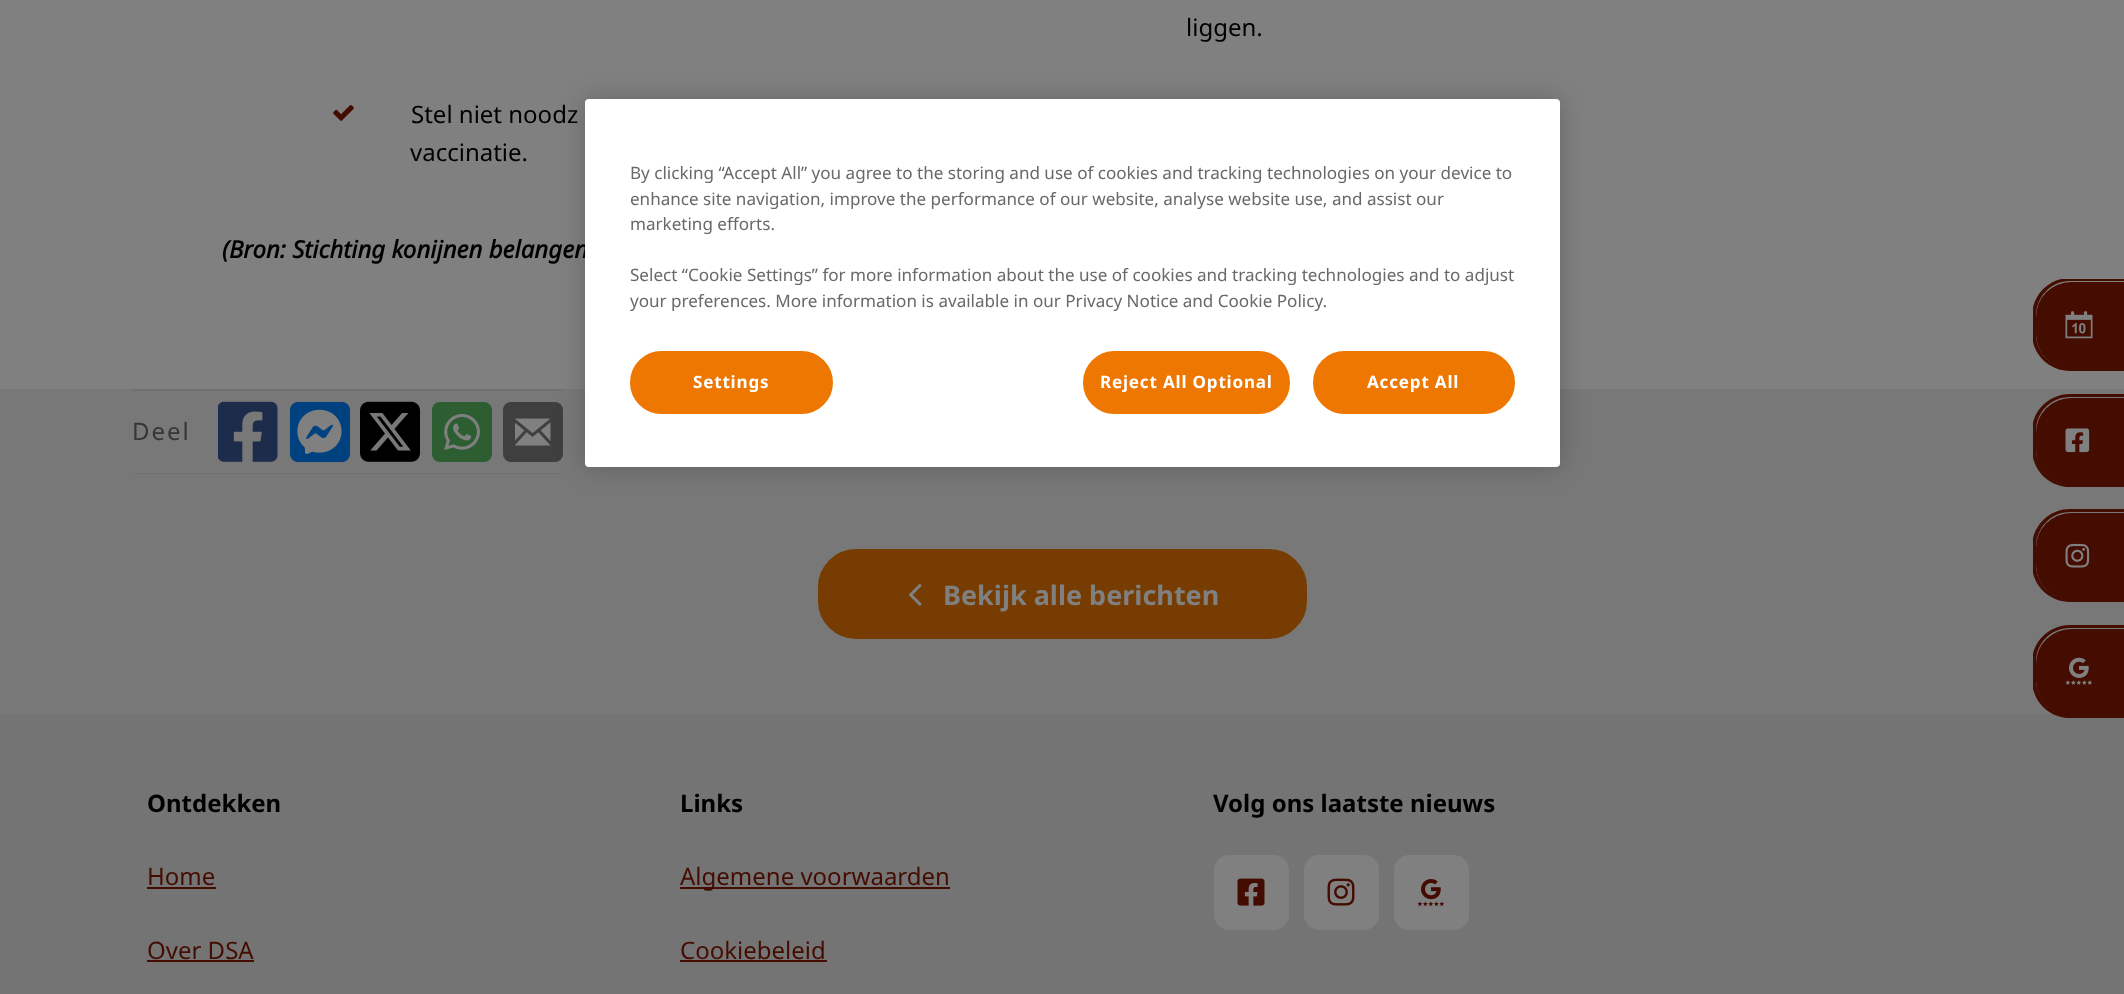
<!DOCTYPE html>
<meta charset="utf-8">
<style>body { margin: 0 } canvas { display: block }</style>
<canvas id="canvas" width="2124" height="994"></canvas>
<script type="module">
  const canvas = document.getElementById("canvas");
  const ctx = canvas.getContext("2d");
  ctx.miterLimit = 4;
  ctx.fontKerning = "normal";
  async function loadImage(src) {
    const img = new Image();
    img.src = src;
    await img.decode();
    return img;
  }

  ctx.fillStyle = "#808080";
  ctx.fillRect(0, 0, 2124, 994);
  ctx.font = "24px Noto Sans";
  ctx.fillStyle = "#000000";
  ctx.fillText("liggen.", 1186, 36);
  ctx.drawImage(await loadImage("img1.png"), 333, 105, 21, 16);
  ctx.fillText("Stel niet noodz", 411, 123);
  ctx.fillText("vaccinatie.", 410, 161);
  ctx.font = "italic bold 24px Noto Sans";
  ctx.fillText("(Bron: Stichting konijnen belangen", 222, 258);
  ctx.fillStyle = "#787878";
  ctx.fillRect(0, 389, 2124, 325);
  ctx.fillStyle = "#737170";
  ctx.fillRect(132, 389, 431, 2);
  ctx.fillRect(132, 473, 431, 1);
  ctx.letterSpacing = "2px";
  ctx.font = "24px Noto Sans";
  ctx.fillStyle = "#363636";
  ctx.fillText("Deel", 132, 440);
  ctx.drawImage(await loadImage("img2.png"), 218, 401, 60, 61);
  ctx.fillStyle = "#004280";
  ctx.beginPath();
  ctx.roundRect(291, 403, 58, 58, 7);
  ctx.fill();
  ctx.strokeStyle = "#004280";
  ctx.lineWidth = 2;
  ctx.stroke();
  ctx.drawImage(await loadImage("img3.png"), 297, 409, 45, 45);
  ctx.drawImage(await loadImage("img4.png"), 360, 401, 60, 61);
  ctx.fillStyle = "#2c5e32";
  ctx.beginPath();
  ctx.roundRect(433, 403, 58, 58, 7);
  ctx.fill();
  ctx.strokeStyle = "#2c5e32";
  ctx.stroke();
  ctx.drawImage(await loadImage("img5.png"), 444, 414, 36, 36);
  ctx.fillStyle = "#3f3f3f";
  ctx.beginPath();
  ctx.roundRect(504, 403, 58, 58, 7);
  ctx.fill();
  ctx.strokeStyle = "#3f3f3f";
  ctx.stroke();
  ctx.drawImage(await loadImage("img6.png"), 515, 418, 36, 28);
  ctx.fillStyle = "#773c01";
  ctx.beginPath();
  ctx.roundRect(819.5, 550.5, 486, 87, 36.5);
  ctx.fill();
  ctx.strokeStyle = "#773c01";
  ctx.lineWidth = 3;
  ctx.stroke();
  ctx.drawImage(await loadImage("img7.png"), 908, 583, 14, 23);
  ctx.letterSpacing = "0px";
  ctx.font = "bold 27px Noto Sans";
  ctx.fillStyle = "#808080";
  ctx.fillText("Bekijk alle berichten", 943, 605);
  ctx.fillStyle = "#450d01";
  ctx.beginPath();
  ctx.roundRect(2036, 282, 88, 87, [35, 0, 0, 35]);
  ctx.fill();
  ctx.save();
  ctx.beginPath();
  ctx.rect(2033, 279, 91, 440);
  ctx.clip();
  ctx.beginPath();
  ctx.moveTo(2070, 278);
  ctx.lineTo(2124, 278);
  ctx.lineTo(2124, 371);
  ctx.lineTo(2070, 371);
  ctx.bezierCurveTo(2049, 371, 2032, 354, 2032, 334);
  ctx.lineTo(2032, 316);
  ctx.bezierCurveTo(2032, 295, 2049, 278, 2070, 278);
  ctx.closePath();
  ctx.moveTo(2070, 281);
  ctx.lineTo(2124, 281);
  ctx.lineTo(2124, 368);
  ctx.lineTo(2070, 368);
  ctx.bezierCurveTo(2051, 368, 2036, 353, 2036, 334);
  ctx.lineTo(2036, 316);
  ctx.bezierCurveTo(2036, 297, 2051, 281, 2070, 281);
  ctx.closePath();
  ctx.fill("evenodd");
  ctx.restore();
  ctx.drawImage(await loadImage("img8.png"), 2065, 311, 28, 28);
  ctx.beginPath();
  ctx.roundRect(2036, 398, 88, 87, [35, 0, 0, 35]);
  ctx.fill();
  ctx.save();
  ctx.beginPath();
  ctx.rect(2033, 279, 91, 440);
  ctx.clip();
  ctx.beginPath();
  ctx.moveTo(2070, 394);
  ctx.lineTo(2124, 394);
  ctx.lineTo(2124, 487);
  ctx.lineTo(2070, 487);
  ctx.bezierCurveTo(2049, 487, 2032, 470, 2032, 449);
  ctx.lineTo(2032, 431);
  ctx.bezierCurveTo(2032, 411, 2049, 394, 2070, 394);
  ctx.closePath();
  ctx.moveTo(2070, 397);
  ctx.lineTo(2124, 397);
  ctx.lineTo(2124, 484);
  ctx.lineTo(2070, 484);
  ctx.bezierCurveTo(2051, 484, 2036, 468, 2036, 449);
  ctx.lineTo(2036, 431);
  ctx.bezierCurveTo(2036, 412, 2051, 397, 2070, 397);
  ctx.closePath();
  ctx.fill("evenodd");
  ctx.restore();
  ctx.drawImage(await loadImage("img9.png"), 2065, 428, 25, 25);
  ctx.beginPath();
  ctx.roundRect(2036, 513, 88, 87, [35, 0, 0, 35]);
  ctx.fill();
  ctx.save();
  ctx.beginPath();
  ctx.rect(2033, 279, 91, 440);
  ctx.clip();
  ctx.beginPath();
  ctx.moveTo(2070, 509);
  ctx.lineTo(2124, 509);
  ctx.lineTo(2124, 602);
  ctx.lineTo(2070, 602);
  ctx.bezierCurveTo(2049, 602, 2032, 585, 2032, 565);
  ctx.lineTo(2032, 547);
  ctx.bezierCurveTo(2032, 526, 2049, 509, 2070, 509);
  ctx.closePath();
  ctx.moveTo(2070, 512);
  ctx.lineTo(2124, 512);
  ctx.lineTo(2124, 599);
  ctx.lineTo(2070, 599);
  ctx.bezierCurveTo(2051, 599, 2036, 584, 2036, 565);
  ctx.lineTo(2036, 547);
  ctx.bezierCurveTo(2036, 528, 2051, 512, 2070, 512);
  ctx.closePath();
  ctx.fill("evenodd");
  ctx.restore();
  ctx.drawImage(await loadImage("img10.png"), 2065, 543, 25, 25);
  ctx.fillStyle = "#747474";
  ctx.fillRect(0, 714, 2124, 280);
  ctx.fillStyle = "#450d01";
  ctx.beginPath();
  ctx.roundRect(2036, 629, 88, 87, [35, 0, 0, 35]);
  ctx.fill();
  ctx.save();
  ctx.beginPath();
  ctx.rect(2033, 279, 91, 440);
  ctx.clip();
  ctx.beginPath();
  ctx.moveTo(2070, 625);
  ctx.lineTo(2124, 625);
  ctx.lineTo(2124, 718);
  ctx.lineTo(2070, 718);
  ctx.bezierCurveTo(2049, 718, 2032, 701, 2032, 680);
  ctx.lineTo(2032, 662);
  ctx.bezierCurveTo(2032, 642, 2049, 625, 2070, 625);
  ctx.closePath();
  ctx.moveTo(2070, 628);
  ctx.lineTo(2124, 628);
  ctx.lineTo(2124, 715);
  ctx.lineTo(2070, 715);
  ctx.bezierCurveTo(2051, 715, 2036, 699, 2036, 680);
  ctx.lineTo(2036, 662);
  ctx.bezierCurveTo(2036, 643, 2051, 628, 2070, 628);
  ctx.closePath();
  ctx.fill("evenodd");
  ctx.restore();
  ctx.drawImage(await loadImage("img11.png"), 2065, 657, 27, 28);
  ctx.font = "bold 24px Noto Sans";
  ctx.fillStyle = "#000000";
  ctx.fillText("Ontdekken", 147, 812);
  ctx.font = "24px Noto Sans";
  ctx.fillStyle = "#450d01";
  ctx.fillText("Home", 147, 885);
  ctx.fillRect(147, 887, 69, 2);
  ctx.fillText("Over DSA", 147, 959);
  ctx.fillRect(147, 960, 107, 2);
  ctx.font = "bold 24px Noto Sans";
  ctx.fillStyle = "#000000";
  ctx.fillText("Links", 680, 812);
  ctx.fillStyle = "#450d01";
  ctx.fillRect(680, 887, 270, 2);
  ctx.font = "24px Noto Sans";
  ctx.fillText("Algemene voorwaarden", 680, 885);
  ctx.fillText("Cookiebeleid", 680, 959);
  ctx.fillRect(680, 960, 147, 2);
  ctx.font = "bold 24px Noto Sans";
  ctx.fillStyle = "#000000";
  ctx.fillText("Volg ons laatste nieuws", 1213, 812);
  ctx.fillStyle = "#808080";
  ctx.beginPath();
  ctx.roundRect(1214, 855, 75, 75, 15);
  ctx.fill();
  ctx.drawImage(await loadImage("img12.png"), 1237, 878, 28, 28);
  ctx.beginPath();
  ctx.roundRect(1304, 855, 75, 75, 15);
  ctx.fill();
  ctx.drawImage(await loadImage("img13.png"), 1327, 878, 28, 28);
  ctx.beginPath();
  ctx.roundRect(1394, 855, 75, 75, 15);
  ctx.fill();
  ctx.drawImage(await loadImage("img14.png"), 1417, 879, 27, 27);
  ctx.fillStyle = "rgba(0, 0, 0, 0.2)";
  ctx.filter = "blur(13.5px)";
  ctx.beginPath();
  ctx.roundRect(585, 99, 975, 368, 4);
  ctx.fill();
  ctx.filter = "none";
  ctx.fillStyle = "#ffffff";
  ctx.beginPath();
  ctx.roundRect(585, 99, 975, 368, 4);
  ctx.fill();
  ctx.font = "17.07px Noto Sans";
  ctx.fillStyle = "#696969";
  ctx.fillText("By clicking “Accept All” you agree to the storing and use of cookies and tracking technologies on your device to", 630, 179);
  ctx.fillText("enhance site navigation, improve the performance of our website, analyse website use, and assist our", 630, 205);
  ctx.fillText("marketing efforts.", 630, 230);
  ctx.fillText("Select “Cookie Settings” for more information about the use of cookies and tracking technologies and to adjust", 630, 281);
  ctx.fillText("your preferences. More information is available in our Privacy Notice and Cookie Policy.", 630, 307);
  ctx.fillStyle = "#ee7701";
  ctx.beginPath();
  ctx.roundRect(631, 352, 201, 61, 30.5);
  ctx.fill();
  ctx.strokeStyle = "#ee7701";
  ctx.lineWidth = 2;
  ctx.stroke();
  ctx.letterSpacing = "0.8px";
  ctx.font = "bold 17.07px Noto Sans";
  ctx.fillStyle = "#ffffff";
  ctx.fillText("Settings", 693, 388);
  ctx.fillStyle = "#ee7701";
  ctx.beginPath();
  ctx.roundRect(1084, 352, 205, 61, 30.5);
  ctx.fill();
  ctx.stroke();
  ctx.fillStyle = "#ffffff";
  ctx.fillText("Reject All Optional", 1100, 388);
  ctx.fillStyle = "#ee7701";
  ctx.beginPath();
  ctx.roundRect(1314, 352, 200, 61, 30.5);
  ctx.fill();
  ctx.stroke();
  ctx.fillStyle = "#ffffff";
  ctx.fillText("Accept All", 1367, 388);
</script>
